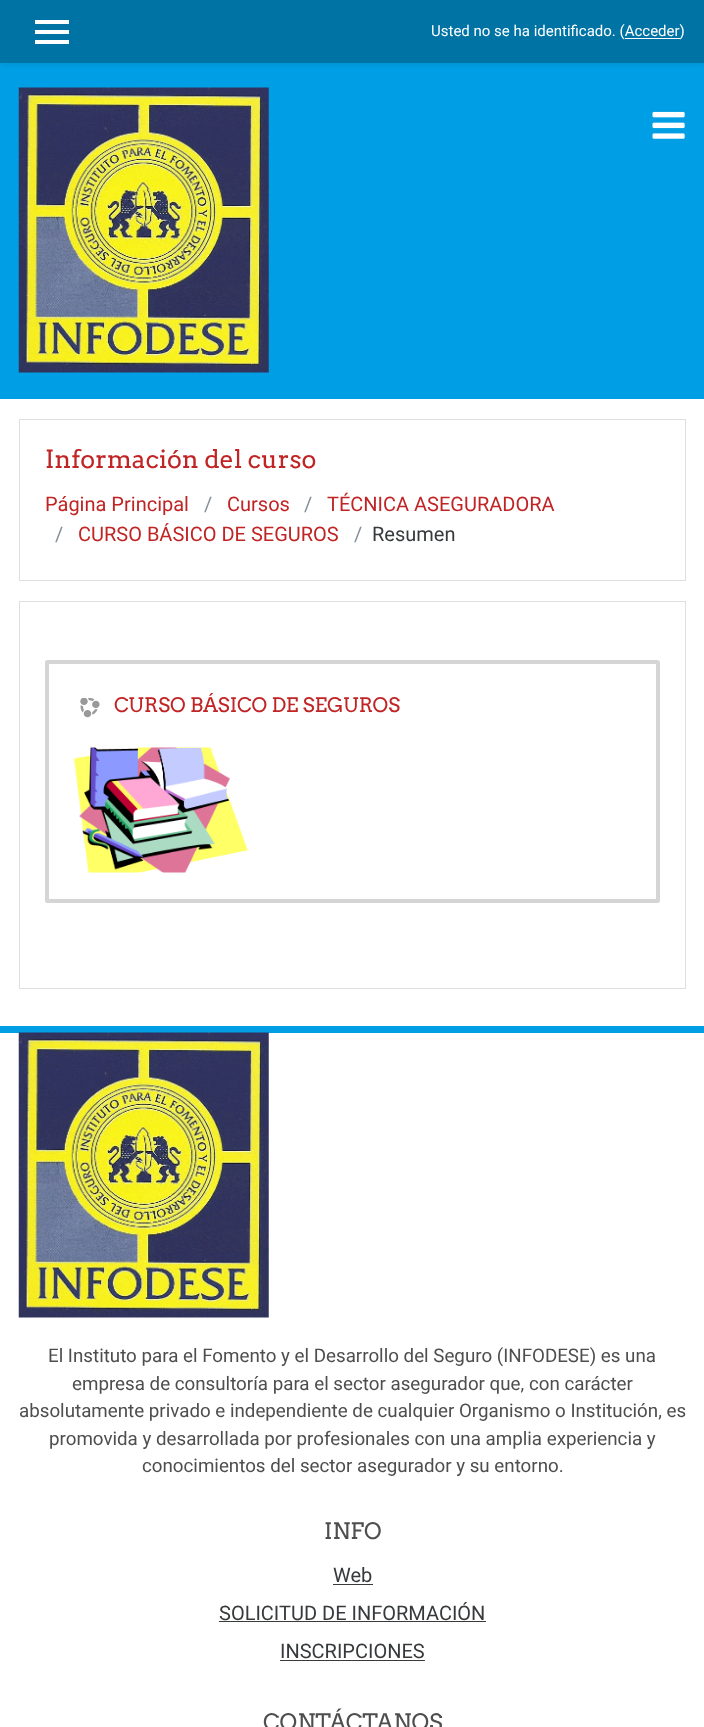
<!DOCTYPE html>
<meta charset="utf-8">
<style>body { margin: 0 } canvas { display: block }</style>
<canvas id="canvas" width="704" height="1727"></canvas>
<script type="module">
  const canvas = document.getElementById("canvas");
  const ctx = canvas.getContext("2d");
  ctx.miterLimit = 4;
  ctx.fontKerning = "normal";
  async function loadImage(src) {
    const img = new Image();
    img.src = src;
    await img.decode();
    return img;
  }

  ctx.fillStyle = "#ffffff";
  ctx.fillRect(0, 0, 704, 1727);
  ctx.fillStyle = "#009fe5";
  ctx.fillRect(0, 63, 704, 336);
  ctx.fillStyle = "rgba(0, 0, 0, 0.08)";
  ctx.filter = "blur(2.5px)";
  ctx.beginPath();
  ctx.rect(0, 3, 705, 62);
  ctx.fill();
  ctx.filter = "none";
  ctx.fillStyle = "#0073a5";
  ctx.fillRect(0, 0, 704, 63);
  ctx.fillStyle = "#ffffff";
  ctx.fillRect(35, 20, 34, 4);
  ctx.fillRect(35, 30, 34, 4);
  ctx.fillRect(35, 40, 34, 4);
  ctx.font = "15px Roboto";
  ctx.fillText("Usted no se ha identificado. (Acceder)", 431, 36);
  ctx.fillRect(625, 38, 55, 1);
  ctx.drawImage(await loadImage("img1.png"), 18, 87, 251, 286);
  ctx.drawImage(await loadImage("img2.png"), 652, 111, 33, 28);
  ctx.strokeStyle = "#dfdfdf";
  ctx.strokeRect(19.5, 419.5, 666, 161);
  ctx.font = "25px Arvo";
  ctx.fillStyle = "#c02424";
  ctx.fillText("Información del curso", 45, 468);
  ctx.font = "20px Roboto";
  ctx.fillText("Página Principal", 45, 511);
  ctx.fillStyle = "#868e96";
  ctx.fillText("/", 204, 511);
  ctx.fillStyle = "#c02424";
  ctx.fillText("Cursos", 227, 511);
  ctx.fillStyle = "#868e96";
  ctx.fillText("/", 304, 511);
  ctx.fillStyle = "#c02424";
  ctx.fillText("TÉCNICA ASEGURADORA", 327, 511);
  ctx.fillStyle = "#868e96";
  ctx.fillText("/", 55, 541);
  ctx.fillStyle = "#c02424";
  ctx.fillText("CURSO BÁSICO DE SEGUROS", 78, 541);
  ctx.fillStyle = "#868e96";
  ctx.fillText("/", 354, 541);
  ctx.fillStyle = "#373a3c";
  ctx.fillText("Resumen", 372, 541);
  ctx.strokeRect(19.5, 601.5, 666, 387);
  ctx.beginPath();
  ctx.roundRect(47, 662, 611, 239, 0.5);
  ctx.strokeStyle = "#d5d5d5";
  ctx.lineWidth = 4;
  ctx.stroke();
  ctx.drawImage(await loadImage("img3.png"), 80, 698, 20, 20);
  ctx.font = "20px Arvo";
  ctx.fillStyle = "#c02424";
  ctx.fillText("CURSO BÁSICO DE SEGUROS", 114, 712);
  ctx.drawImage(await loadImage("img4.png"), 73, 747, 175, 126);
  ctx.fillStyle = "#009fe5";
  ctx.fillRect(0, 1026, 704, 7);
  ctx.drawImage(await loadImage("img5.png"), 18, 1032, 251, 286);
  ctx.font = "18.75px Roboto";
  ctx.fillStyle = "#4e4e4e";
  ctx.fillText("El Instituto para el Fomento y el Desarrollo del Seguro (INFODESE) es una", 48, 1362);
  ctx.fillText("empresa de consultoría para el sector asegurador que, con carácter", 72, 1390);
  ctx.fillText("absolutamente privado e independiente de cualquier Organismo o Institución, es", 19, 1417);
  ctx.fillText("promovida y desarrollada por profesionales con una amplia experiencia y", 49, 1445);
  ctx.fillText("conocimientos del sector asegurador y su entorno.", 142, 1472);
  ctx.font = "22.5px Arvo";
  ctx.fillText("INFO", 324, 1539);
  ctx.font = "20px Roboto";
  ctx.fillStyle = "#373a3c";
  ctx.fillText("Web", 333, 1582);
  ctx.fillStyle = "#3a3a3a";
  ctx.fillRect(333, 1584, 40, 1);
  ctx.fillStyle = "#373a3c";
  ctx.fillText("SOLICITUD DE INFORMACIÓN", 219, 1620);
  ctx.fillStyle = "#3a3a3a";
  ctx.fillRect(219, 1621, 267, 1);
  ctx.fillStyle = "#373a3c";
  ctx.fillText("INSCRIPCIONES", 280, 1658);
  ctx.fillStyle = "#3a3a3a";
  ctx.fillRect(280, 1660, 145, 1);
  ctx.font = "22.5px Arvo";
  ctx.fillStyle = "#4e4e4e";
  ctx.fillText("CONTÁCTANOS", 263, 1730);
</script>
